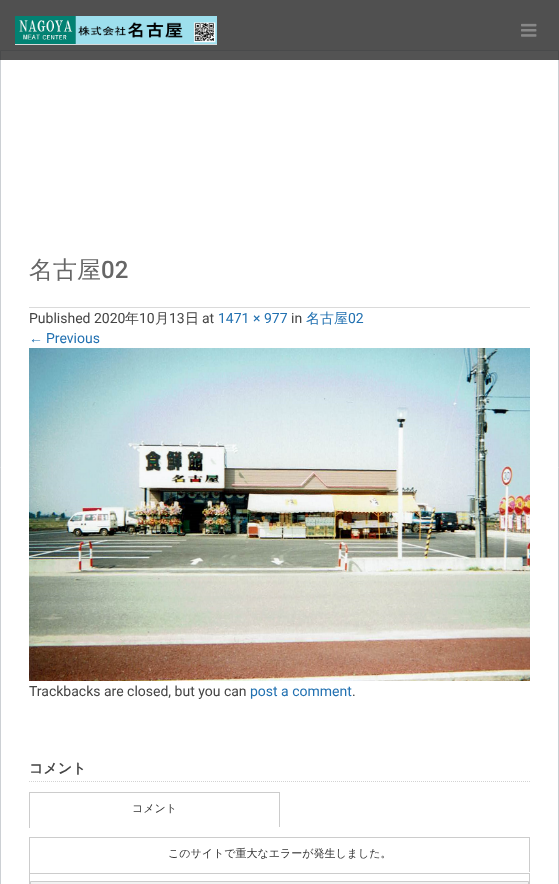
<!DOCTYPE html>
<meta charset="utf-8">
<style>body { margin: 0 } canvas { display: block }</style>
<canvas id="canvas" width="559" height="884"></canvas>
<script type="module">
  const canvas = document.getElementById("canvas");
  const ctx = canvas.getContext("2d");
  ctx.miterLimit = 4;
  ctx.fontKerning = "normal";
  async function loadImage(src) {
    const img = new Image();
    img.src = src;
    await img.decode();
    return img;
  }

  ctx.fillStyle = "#f1f1f1";
  ctx.fillRect(0, 0, 559, 884);
  ctx.fillStyle = "#ffffff";
  ctx.beginPath();
  ctx.rect(0.5, 50.5, 558, 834);
  ctx.fill();
  ctx.strokeStyle = "#ccd0d4";
  ctx.stroke();
  ctx.fillStyle = "rgba(40, 40, 40, 0.8)";
  ctx.fillRect(0, 0, 559, 60);
  ctx.fillStyle = "#dadada";
  ctx.fillRect(15, 44, 202, 1);
  ctx.drawImage(await loadImage("img1.png"), 15, 16, 202, 28);
  ctx.drawImage(await loadImage("img2.png"), 521, 23, 16, 14);
  ctx.fillRect(29, 307, 501, 1);
  ctx.font = "500 24px WenQuanYi Zen Hei";
  ctx.fillStyle = "#666666";
  ctx.fillText("名古屋", 29, 278);
  ctx.font = "500 24px Roboto";
  ctx.fillText("02", 101, 278);
  ctx.font = "14px Roboto";
  ctx.fillStyle = "#444444";
  ctx.fillText("Published 2020", 29, 323);
  ctx.font = "500 14px WenQuanYi Zen Hei";
  ctx.fillText("年", 125, 323);
  ctx.font = "14px Roboto";
  ctx.fillText("10", 139, 323);
  ctx.font = "500 14px WenQuanYi Zen Hei";
  ctx.fillText("月", 155, 323);
  ctx.font = "14px Roboto";
  ctx.fillText("13", 169, 323);
  ctx.font = "500 14px WenQuanYi Zen Hei";
  ctx.fillText("日", 185, 323);
  ctx.font = "14px Roboto";
  ctx.fillText("at", 202, 323);
  ctx.fillStyle = "#2271b1";
  ctx.fillText("1471 × 977", 218, 323);
  ctx.fillStyle = "#444444";
  ctx.fillText("in", 291, 323);
  ctx.font = "500 14px WenQuanYi Zen Hei";
  ctx.fillStyle = "#2271b1";
  ctx.fillText("名古屋", 306, 323);
  ctx.font = "14px Roboto";
  ctx.fillText("02", 348, 323);
  ctx.font = "14px Liberation Sans";
  ctx.fillText("←", 29, 343);
  ctx.font = "14px Roboto";
  ctx.fillText("Previous", 46, 343);
  ctx.drawImage(await loadImage("img3.png"), 29, 348, 501, 333);
  ctx.fillStyle = "#444444";
  ctx.fillText("Trackbacks are closed, but you can", 29, 696);
  ctx.fillStyle = "#2271b1";
  ctx.fillText("post a comment", 250, 696);
  ctx.fillStyle = "#444444";
  ctx.fillText(".", 352, 696);
  ctx.beginPath();
  ctx.moveTo(29, 781.5);
  ctx.lineTo(530, 781.5);
  ctx.strokeStyle = "#d3d3d3";
  ctx.setLineDash([1, 1]);
  ctx.stroke();
  ctx.font = "bold 14px WenQuanYi Zen Hei";
  ctx.fillText("コメント", 29, 773);
  ctx.fillStyle = "#cccccc";
  ctx.fillRect(29, 792, 251, 1);
  ctx.fillRect(279, 792, 1, 36);
  ctx.fillStyle = "#ffffff";
  ctx.fillRect(279, 827, 1, 1);
  ctx.fillStyle = "#cccccc";
  ctx.fillRect(29, 792, 1, 36);
  ctx.font = "500 11px WenQuanYi Zen Hei";
  ctx.fillStyle = "#333333";
  ctx.fillText("コメント", 132, 812);
  ctx.fillStyle = "#cccccc";
  ctx.fillRect(29, 837, 501, 1);
  ctx.fillRect(529, 837, 1, 36);
  ctx.fillStyle = "#ffffff";
  ctx.fillRect(529, 872, 1, 1);
  ctx.fillStyle = "#cccccc";
  ctx.fillRect(29, 837, 1, 36);
  ctx.fillStyle = "#333333";
  ctx.fillText("このサイトで重大なエラーが発生しました。", 168, 857);
  ctx.fillStyle = "#cccccc";
  ctx.fillRect(29, 873, 501, 1);
  ctx.fillRect(529, 873, 1, 11);
  ctx.fillRect(29, 873, 1, 11);
  ctx.fillStyle = "#f2f2f2";
  ctx.beginPath();
  ctx.rect(30.5, 881.5, 498, 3);
  ctx.fill();
  ctx.strokeStyle = "#cccccc";
  ctx.setLineDash([]);
  ctx.stroke();
</script>
